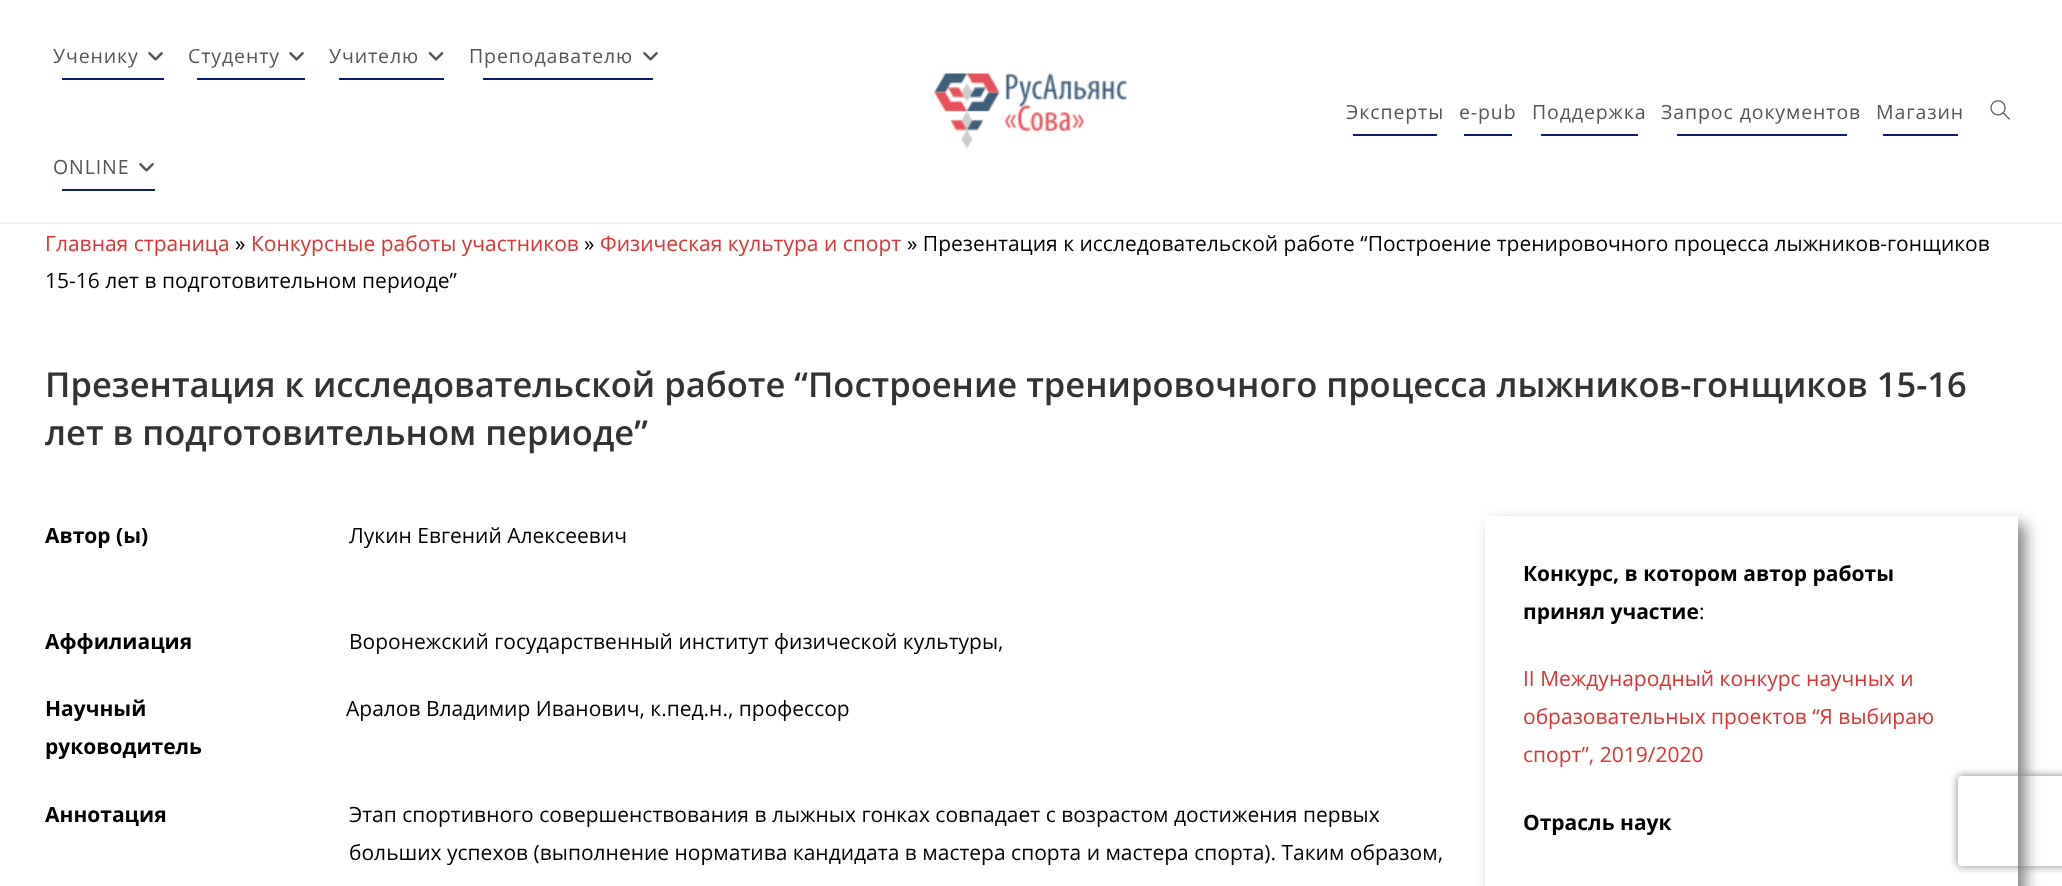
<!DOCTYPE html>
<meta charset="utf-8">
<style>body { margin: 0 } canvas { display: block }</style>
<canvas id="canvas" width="2062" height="886"></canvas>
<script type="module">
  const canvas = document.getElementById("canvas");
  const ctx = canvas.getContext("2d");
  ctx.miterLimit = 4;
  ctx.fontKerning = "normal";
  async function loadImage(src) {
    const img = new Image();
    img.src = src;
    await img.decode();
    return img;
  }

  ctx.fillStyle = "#ffffff";
  ctx.fillRect(0, 0, 2062, 886);
  ctx.fillStyle = "#f1f1f1";
  ctx.fillRect(0, 222, 2062, 2);
  ctx.letterSpacing = "0.9px";
  ctx.font = "19.5px Open Sans";
  ctx.fillStyle = "#555555";
  ctx.fillText("Ученику", 53, 63);
  ctx.drawImage(await loadImage("img1.png"), 148, 52, 15, 9);
  ctx.fillStyle = "#091d75";
  ctx.fillRect(62, 78, 102, 2);
  ctx.fillStyle = "#555555";
  ctx.fillText("Студенту", 188, 63);
  ctx.drawImage(await loadImage("img1.png"), 289, 52, 15, 9);
  ctx.fillStyle = "#091d75";
  ctx.fillRect(197, 78, 108, 2);
  ctx.fillStyle = "#555555";
  ctx.fillText("Учителю", 329, 63);
  ctx.drawImage(await loadImage("img2.png"), 428, 52, 16, 9);
  ctx.fillStyle = "#091d75";
  ctx.fillRect(339, 78, 105, 2);
  ctx.fillStyle = "#555555";
  ctx.fillText("Преподавателю", 469, 63);
  ctx.drawImage(await loadImage("img1.png"), 643, 52, 15, 9);
  ctx.fillStyle = "#091d75";
  ctx.fillRect(483, 78, 170, 2);
  ctx.fillStyle = "#555555";
  ctx.fillText("ONLINE", 53, 174);
  ctx.drawImage(await loadImage("img1.png"), 139, 163, 15, 9);
  ctx.fillStyle = "#091d75";
  ctx.fillRect(62, 189, 93, 2);
  ctx.drawImage(await loadImage("img3.png"), 934, 73, 193, 76);
  ctx.fillStyle = "#555555";
  ctx.fillText("Эксперты", 1346, 119);
  ctx.fillStyle = "#091d75";
  ctx.fillRect(1353, 134, 84, 2);
  ctx.fillStyle = "#555555";
  ctx.fillText("e-pub", 1459, 119);
  ctx.fillStyle = "#091d75";
  ctx.fillRect(1464, 134, 48, 2);
  ctx.fillStyle = "#555555";
  ctx.fillText("Поддержка", 1532, 119);
  ctx.fillStyle = "#091d75";
  ctx.fillRect(1541, 134, 97, 2);
  ctx.fillStyle = "#555555";
  ctx.fillText("Запрос документов", 1661, 119);
  ctx.fillStyle = "#091d75";
  ctx.fillRect(1677, 134, 170, 2);
  ctx.fillStyle = "#555555";
  ctx.fillText("Магазин", 1876, 119);
  ctx.fillStyle = "#091d75";
  ctx.fillRect(1883, 134, 75, 2);
  ctx.drawImage(await loadImage("img4.png"), 1990, 100, 20, 20);
  ctx.letterSpacing = "0px";
  ctx.font = "21px Open Sans";
  ctx.fillStyle = "#dd3333";
  ctx.fillText("Главная страница", 45, 251);
  ctx.fillStyle = "#000000";
  ctx.fillText("»", 235, 251);
  ctx.fillStyle = "#dd3333";
  ctx.fillText("Конкурсные работы участников", 251, 251);
  ctx.fillStyle = "#000000";
  ctx.fillText("»", 584, 251);
  ctx.fillStyle = "#dd3333";
  ctx.fillText("Физическая культура и спорт", 600, 251);
  ctx.fillStyle = "#000000";
  ctx.fillText("» Презентация к исследовательской работе “Построение тренировочного процесса лыжников-гонщиков", 907, 251);
  ctx.fillText("15-16 лет в подготовительном периоде”", 45, 288);
  ctx.font = "600 34.5px Open Sans";
  ctx.fillStyle = "#333333";
  ctx.fillText("Презентация к исследовательской работе “Построение тренировочного процесса лыжников-гонщиков 15-16", 45, 397);
  ctx.fillText("лет в подготовительном периоде”", 45, 445);
  ctx.font = "bold 21px Open Sans";
  ctx.fillStyle = "#000000";
  ctx.fillText("Автор (ы)", 45, 543);
  ctx.font = "21px Open Sans";
  ctx.fillText("Лукин Евгений Алексеевич", 349, 543);
  ctx.font = "bold 21px Open Sans";
  ctx.fillText("Аффилиация", 45, 649);
  ctx.font = "21px Open Sans";
  ctx.fillText("Воронежский государственный институт физической культуры,", 349, 649);
  ctx.font = "bold 21px Open Sans";
  ctx.fillText("Научный", 45, 716);
  ctx.fillText("руководитель", 45, 754);
  ctx.font = "21px Open Sans";
  ctx.fillText("Аралов Владимир Иванович, к.пед.н., профессор", 346, 716);
  ctx.font = "bold 21px Open Sans";
  ctx.fillText("Аннотация", 45, 822);
  ctx.font = "21px Open Sans";
  ctx.fillText("Этап спортивного совершенствования в лыжных гонках совпадает с возрастом достижения первых", 349, 822);
  ctx.fillText("больших успехов (выполнение норматива кандидата в мастера спорта и мастера спорта). Таким образом,", 349, 860);
  ctx.save();
  ctx.beginPath();
  ctx.moveTo(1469, 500);
  ctx.lineTo(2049, 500);
  ctx.lineTo(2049, 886);
  ctx.lineTo(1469, 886);
  ctx.closePath();
  ctx.moveTo(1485, 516);
  ctx.lineTo(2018, 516);
  ctx.lineTo(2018, 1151);
  ctx.lineTo(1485, 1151);
  ctx.closePath();
  ctx.clip("evenodd");
  ctx.fillStyle = "rgba(0, 0, 0, 0.5)";
  ctx.filter = "blur(7.5px)";
  ctx.beginPath();
  ctx.rect(1493, 524, 532, 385);
  ctx.fill();
  ctx.filter = "none";
  ctx.restore();
  ctx.font = "bold 21px Open Sans";
  ctx.fillText("Конкурс, в котором автор работы", 1523, 581);
  ctx.fillText("принял участие", 1523, 619);
  ctx.font = "21px Open Sans";
  ctx.fillText(":", 1699, 619);
  ctx.fillStyle = "#dd3333";
  ctx.fillText("II Международный конкурс научных и", 1523, 686);
  ctx.fillText("образовательных проектов “Я выбираю", 1523, 724);
  ctx.fillText("спорт”, 2019/2020", 1523, 762);
  ctx.font = "bold 21px Open Sans";
  ctx.fillStyle = "#000000";
  ctx.fillText("Отрасль наук", 1523, 830);
  ctx.save();
  ctx.beginPath();
  ctx.moveTo(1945, 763);
  ctx.lineTo(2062, 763);
  ctx.lineTo(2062, 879);
  ctx.lineTo(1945, 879);
  ctx.closePath();
  ctx.moveTo(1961, 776);
  ctx.lineTo(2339, 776);
  ctx.bezierCurveTo(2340.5, 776, 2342, 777.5, 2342, 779);
  ctx.lineTo(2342, 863);
  ctx.bezierCurveTo(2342, 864.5, 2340.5, 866, 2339, 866);
  ctx.lineTo(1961, 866);
  ctx.bezierCurveTo(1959.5, 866, 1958, 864.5, 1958, 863);
  ctx.lineTo(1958, 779);
  ctx.bezierCurveTo(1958, 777.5, 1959.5, 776, 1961, 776);
  ctx.closePath();
  ctx.clip("evenodd");
  ctx.fillStyle = "#808080";
  ctx.filter = "blur(4px)";
  ctx.beginPath();
  ctx.roundRect(1958, 776, 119, 90, 3);
  ctx.fill();
  ctx.filter = "none";
  ctx.restore();
</script>
